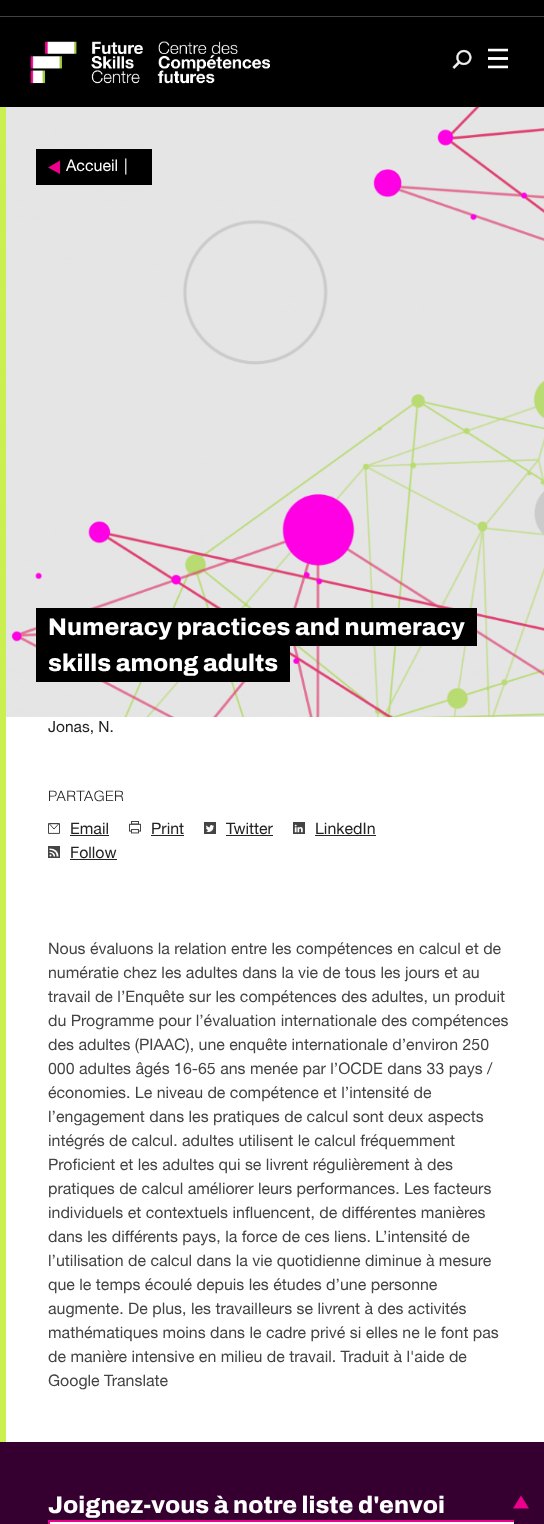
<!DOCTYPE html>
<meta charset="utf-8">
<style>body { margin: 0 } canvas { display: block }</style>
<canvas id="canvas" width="544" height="1524"></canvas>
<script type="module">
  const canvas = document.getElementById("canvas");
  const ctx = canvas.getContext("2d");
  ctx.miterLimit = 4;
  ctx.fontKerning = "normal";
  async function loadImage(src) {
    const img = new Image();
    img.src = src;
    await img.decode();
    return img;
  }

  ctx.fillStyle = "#ffffff";
  ctx.fillRect(0, 0, 544, 1524);
  ctx.fillStyle = "#000000";
  ctx.fillRect(0, 0, 544, 107);
  ctx.fillStyle = "#424242";
  ctx.fillRect(0, 16, 544, 1);
  ctx.drawImage(await loadImage("img1.png"), 30, 41, 240, 43);
  ctx.drawImage(await loadImage("img2.png"), 452, 49, 20, 20);
  ctx.drawImage(await loadImage("img3.png"), 488, 48, 20, 21);
  ctx.drawImage(await loadImage("img4.png"), 6, 107, 538, 610);
  ctx.fillStyle = "#000000";
  ctx.fillRect(36, 149, 12, 36);
  ctx.fillRect(48, 149, 104, 36);
  ctx.fillStyle = "#ec008c";
  ctx.beginPath();
  ctx.moveTo(48, 167.5);
  ctx.lineTo(60, 160.5);
  ctx.lineTo(60, 174);
  ctx.closePath();
  ctx.fill("evenodd");
  ctx.font = "16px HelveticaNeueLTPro";
  ctx.fillStyle = "#ffffff";
  ctx.fillText("Accueil", 66, 171);
  ctx.fillText("|", 124, 171);
  ctx.fillStyle = "#000000";
  ctx.fillRect(48, 608, 429, 38);
  ctx.font = "800 24px Archivo";
  ctx.fillStyle = "#ffffff";
  ctx.fillText("Numeracy practices and numeracy", 48, 635);
  ctx.fillStyle = "#000000";
  ctx.fillRect(36, 608, 12, 74);
  ctx.fillRect(48, 646, 242, 36);
  ctx.fillStyle = "#ffffff";
  ctx.fillText("skills among adults", 48, 671);
  ctx.fillStyle = "#c9ef50";
  ctx.fillRect(0, 107, 6, 1335);
  ctx.font = "15.5px HelveticaNeueLTPro";
  ctx.fillStyle = "#222222";
  ctx.fillText("Jonas, N.", 48, 732);
  ctx.letterSpacing = "0.5px";
  ctx.font = "14.5px 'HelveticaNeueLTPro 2'";
  ctx.fillText("PARTAGER", 48, 801);
  ctx.drawImage(await loadImage("img5.png"), 48, 823, 12, 11);
  ctx.letterSpacing = "0px";
  ctx.font = "15.95px HelveticaNeueLTPro";
  ctx.fillText("Email", 70, 834);
  ctx.fillRect(70, 835, 39, 1);
  ctx.drawImage(await loadImage("img6.png"), 129, 821, 12, 13);
  ctx.fillText("Print", 151, 834);
  ctx.fillRect(151, 835, 33, 1);
  ctx.drawImage(await loadImage("img7.png"), 204, 822, 12, 12);
  ctx.fillText("Twitter", 226, 834);
  ctx.fillRect(226, 835, 47, 1);
  ctx.drawImage(await loadImage("img8.png"), 293, 822, 12, 12);
  ctx.fillText("LinkedIn", 315, 834);
  ctx.fillRect(315, 835, 61, 1);
  ctx.drawImage(await loadImage("img9.png"), 48, 846, 12, 12);
  ctx.fillText("Follow", 70, 858);
  ctx.fillRect(70, 859, 47, 1);
  ctx.fillStyle = "#444444";
  ctx.fillText("Nous évaluons la relation entre les compétences en calcul et de", 48, 954);
  ctx.fillText("numératie chez les adultes dans la vie de tous les jours et au", 48, 978);
  ctx.fillText("travail de l’Enquête sur les compétences des adultes, un produit", 48, 1002);
  ctx.fillText("du Programme pour l’évaluation internationale des compétences", 48, 1026);
  ctx.fillText("des adultes (PIAAC), une enquête internationale d’environ 250", 48, 1050);
  ctx.fillText("000 adultes âgés 16-65 ans menée par l’OCDE dans 33 pays /", 48, 1074);
  ctx.fillText("économies. Le niveau de compétence et l’intensité de", 48, 1098);
  ctx.fillText("l’engagement dans les pratiques de calcul sont deux aspects", 48, 1122);
  ctx.fillText("intégrés de calcul. adultes utilisent le calcul fréquemment", 48, 1146);
  ctx.fillText("Proficient et les adultes qui se livrent régulièrement à des", 48, 1170);
  ctx.fillText("pratiques de calcul améliorer leurs performances. Les facteurs", 48, 1194);
  ctx.fillText("individuels et contextuels influencent, de différentes manières", 48, 1218);
  ctx.fillText("dans les différents pays, la force de ces liens. L’intensité de", 48, 1242);
  ctx.fillText("l’utilisation de calcul dans la vie quotidienne diminue à mesure", 48, 1266);
  ctx.fillText("que le temps écoulé depuis les études d’une personne", 48, 1290);
  ctx.fillText("augmente. De plus, les travailleurs se livrent à des activités", 48, 1314);
  ctx.fillText("mathématiques moins dans le cadre privé si elles ne le font pas", 48, 1338);
  ctx.fillText("de manière intensive en milieu de travail. Traduit à l'aide de", 48, 1362);
  ctx.fillText("Google Translate", 48, 1386);
  ctx.fillStyle = "#350030";
  ctx.fillRect(0, 1442, 544, 82);
  ctx.font = "800 24px Archivo";
  ctx.fillStyle = "#ffffff";
  ctx.fillText("Joignez-vous à notre liste d'envoi", 48, 1513);
  ctx.fillRect(48, 1522, 466, 2);
  ctx.fillStyle = "#ec008c";
  ctx.fillRect(48, 1520, 466, 2);
  ctx.fillRect(48, 1520, 2, 4);
  ctx.beginPath();
  ctx.moveTo(529, 1508.5);
  ctx.lineTo(513, 1508.5);
  ctx.lineTo(521, 1495.5);
  ctx.closePath();
  ctx.fill();
</script>
